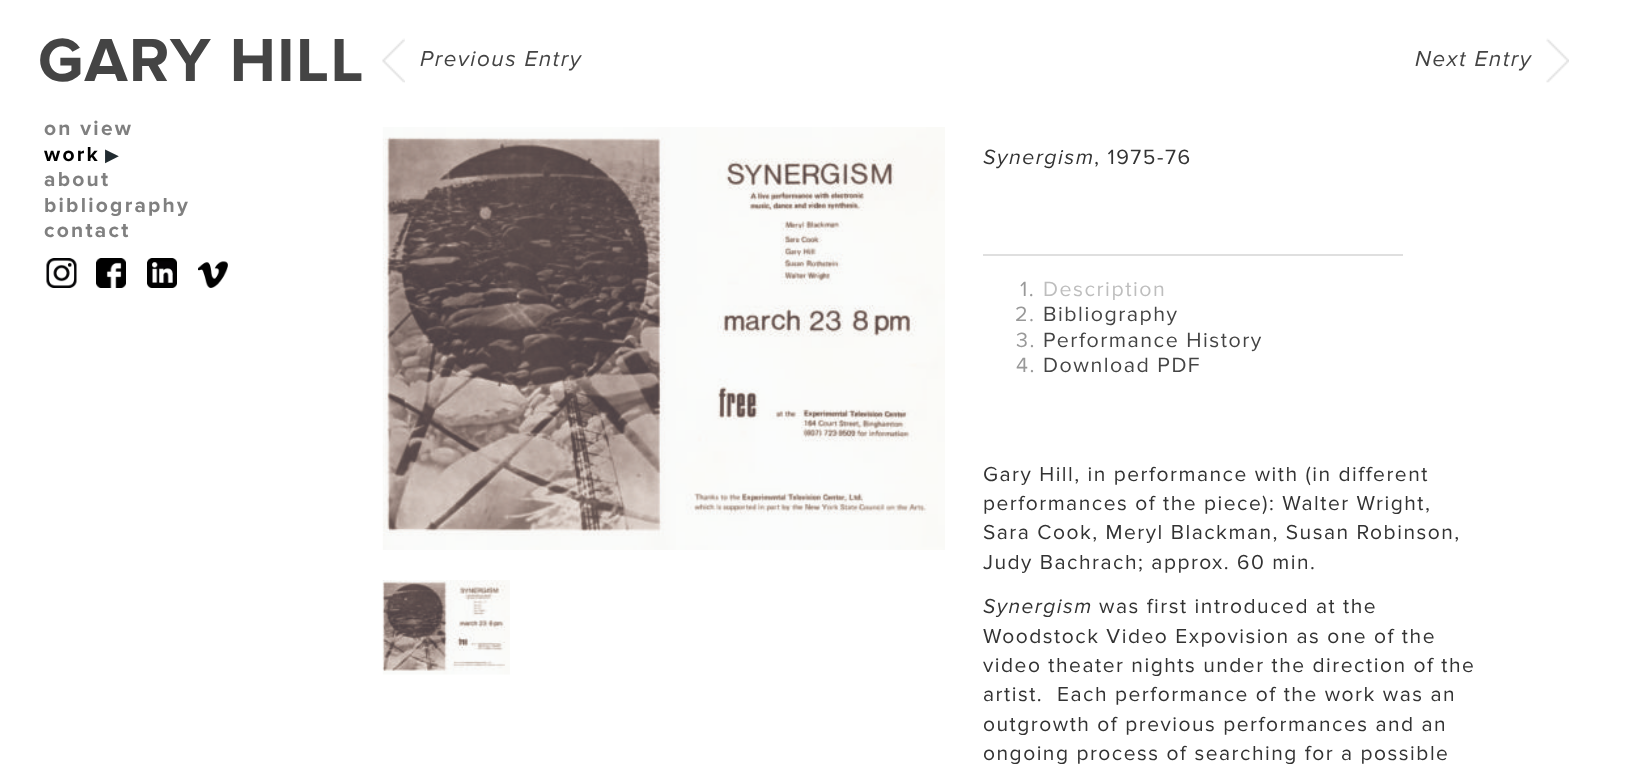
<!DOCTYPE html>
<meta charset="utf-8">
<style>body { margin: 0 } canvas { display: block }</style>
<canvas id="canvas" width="1625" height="784"></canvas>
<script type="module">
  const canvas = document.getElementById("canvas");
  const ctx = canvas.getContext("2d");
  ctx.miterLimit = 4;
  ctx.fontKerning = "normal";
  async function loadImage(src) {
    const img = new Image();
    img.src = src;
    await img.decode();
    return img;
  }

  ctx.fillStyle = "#ffffff";
  ctx.fillRect(0, 0, 1625, 784);
  ctx.letterSpacing = "1.5px";
  ctx.font = "bold 63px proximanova";
  ctx.fillStyle = "#444444";
  ctx.fillText("GARY HILL", 38, 81);
  ctx.letterSpacing = "2.25px";
  ctx.font = "bold 21px proximanova";
  ctx.fillStyle = "#808080";
  ctx.fillText("on view", 44, 135);
  ctx.fillStyle = "#000000";
  ctx.fillText("work", 44, 161);
  ctx.font = "bold 17px DejaVu Sans";
  ctx.fillStyle = "#212b30";
  ctx.fillText("▶︎", 105, 161);
  ctx.font = "bold 21px proximanova";
  ctx.fillStyle = "#808080";
  ctx.fillText("about", 44, 186);
  ctx.fillText("bibliography", 44, 212);
  ctx.fillText("contact", 44, 237);
  ctx.drawImage(await loadImage("img1.png"), 46, 258, 31, 30);
  ctx.drawImage(await loadImage("img2.png"), 96, 258, 30, 30);
  ctx.drawImage(await loadImage("img3.png"), 147, 258, 30, 30);
  ctx.drawImage(await loadImage("img4.png"), 198, 261, 30, 27);
  ctx.drawImage(await loadImage("img5.png"), 382, 38, 23, 45);
  ctx.letterSpacing = "1.5px";
  ctx.font = "italic 22.5px proximanova";
  ctx.fillStyle = "#444444";
  ctx.fillText("Previous Entry", 420, 66);
  ctx.drawImage(await loadImage("img6.png"), 1546, 38, 23, 45);
  ctx.fillText("Next Entry", 1415, 66);
  ctx.drawImage(await loadImage("img7.png"), 382, 127, 563, 423);
  ctx.drawImage(await loadImage("img8.png"), 382, 580, 128, 95);
  ctx.font = "italic 21.4px proximanova";
  ctx.fillStyle = "#333333";
  ctx.fillText("Synergism", 983, 164);
  ctx.font = "21.4px proximanova";
  ctx.fillText(", 1975-76", 1094, 164);
  ctx.fillStyle = "#dfdfdf";
  ctx.fillRect(983, 254, 420, 2);
  ctx.fillStyle = "#999999";
  ctx.fillText("1.", 1020, 296);
  ctx.fillStyle = "#bebebe";
  ctx.fillText("Description", 1043, 296);
  ctx.fillStyle = "#999999";
  ctx.fillText("2.", 1015, 321);
  ctx.fillStyle = "#444444";
  ctx.fillText("Bibliography", 1043, 321);
  ctx.fillStyle = "#999999";
  ctx.fillText("3.", 1016, 347);
  ctx.fillStyle = "#444444";
  ctx.fillText("Performance History", 1043, 347);
  ctx.fillStyle = "#999999";
  ctx.fillText("4.", 1016, 372);
  ctx.fillStyle = "#444444";
  ctx.fillText("Download PDF", 1043, 372);
  ctx.font = "21px proximanova";
  ctx.fillStyle = "#333333";
  ctx.fillText("Gary Hill, in performance with (in different", 983, 481);
  ctx.fillText("performances of the piece): Walter Wright,", 983, 510);
  ctx.fillText("Sara Cook, Meryl Blackman, Susan Robinson,", 983, 539);
  ctx.fillText("Judy Bachrach; approx. 60 min.", 983, 569);
  ctx.font = "italic 21px proximanova";
  ctx.fillText("Synergism", 983, 613);
  ctx.font = "21px proximanova";
  ctx.fillText("was first introduced at the", 1099, 613);
  ctx.fillText("Woodstock Video Expovision as one of the", 983, 643);
  ctx.fillText("video theater nights under the direction of the", 983, 672);
  ctx.fillText("artist.  Each performance of the work was an", 983, 701);
  ctx.fillText("outgrowth of previous performances and an", 983, 731);
  ctx.fillText("ongoing process of searching for a possible", 983, 760);
</script>
